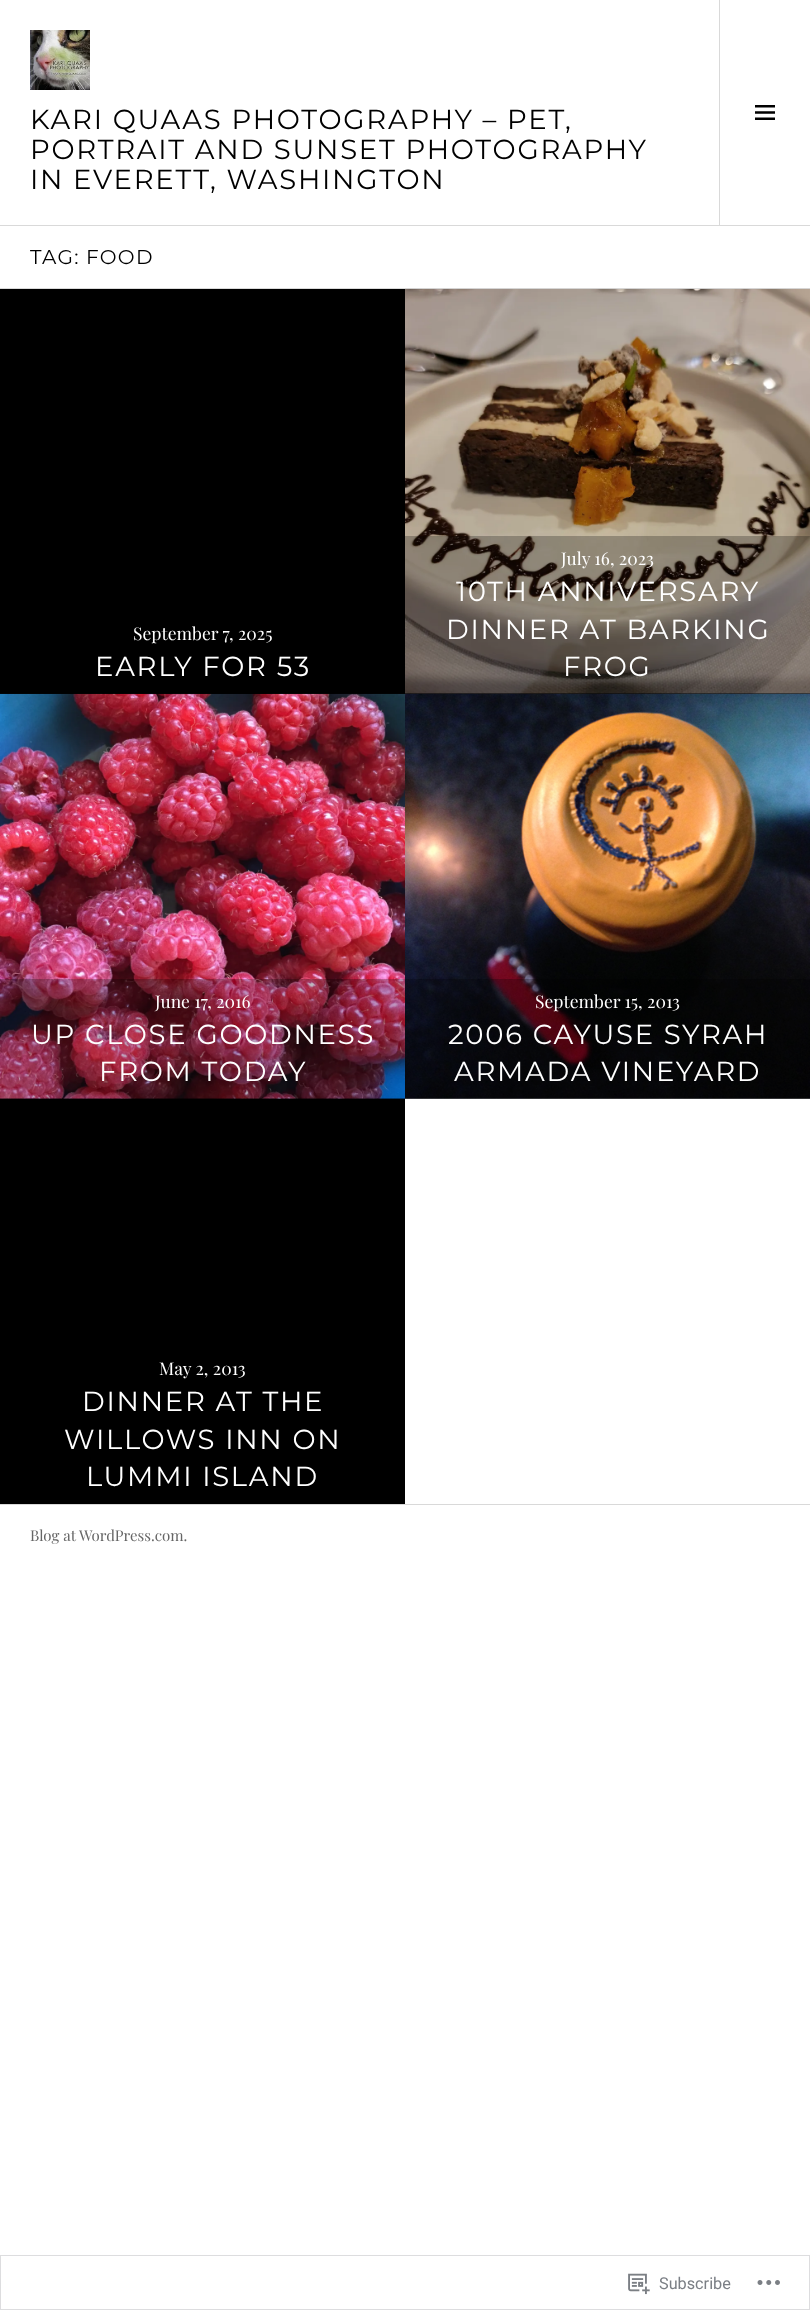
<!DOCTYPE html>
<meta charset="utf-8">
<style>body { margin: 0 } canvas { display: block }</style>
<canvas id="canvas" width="810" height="2310"></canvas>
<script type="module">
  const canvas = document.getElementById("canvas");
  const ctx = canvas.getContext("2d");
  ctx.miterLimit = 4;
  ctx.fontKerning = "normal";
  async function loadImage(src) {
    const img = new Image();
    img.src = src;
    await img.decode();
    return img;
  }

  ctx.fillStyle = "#ffffff";
  ctx.fillRect(0, 0, 810, 2310);
  ctx.fillStyle = "#d9d9d9";
  ctx.fillRect(0, 225, 810, 1);
  ctx.drawImage(await loadImage("img1.png"), 30, 30, 60, 60);
  ctx.letterSpacing = "1.75px";
  ctx.font = "27.5px Montserrat";
  ctx.fillStyle = "#000000";
  ctx.fillText("KARI QUAAS PHOTOGRAPHY – PET,", 30, 129);
  ctx.fillText("PORTRAIT AND SUNSET PHOTOGRAPHY", 30, 159);
  ctx.fillText("IN EVERETT, WASHINGTON", 30, 189);
  ctx.fillStyle = "#d9d9d9";
  ctx.fillRect(719, 0, 1, 225);
  ctx.drawImage(await loadImage("img2.png"), 755, 105, 20, 15);
  ctx.fillRect(0, 288, 810, 1);
  ctx.letterSpacing = "1.25px";
  ctx.font = "20px Montserrat";
  ctx.fillStyle = "#000000";
  ctx.fillText("TAG: FOOD", 30, 264);
  ctx.fillRect(0, 289, 405, 405);
  ctx.fillRect(0, 1098, 405, 406);
  ctx.drawImage(await loadImage("img4.png"), 0, 693, 405, 406);
  ctx.fillStyle = "rgba(0, 0, 0, 0.25)";
  ctx.fillRect(0, 693, 322, 1);
  ctx.letterSpacing = "0px";
  ctx.font = "17.5px Playfair Display";
  ctx.fillStyle = "#ffffff";
  ctx.fillText("September 7, 2025", 133, 640);
  ctx.letterSpacing = "1.75px";
  ctx.font = "27.5px Montserrat";
  ctx.fillText("EARLY FOR 53", 95, 676);
  ctx.fillStyle = "#000000";
  ctx.fillRect(405, 693, 405, 1);
  ctx.drawImage(await loadImage("img3.png"), 405, 288, 405, 406);
  ctx.drawImage(await loadImage("img5.png"), 405, 693, 405, 406);
  ctx.fillStyle = "rgba(0, 0, 0, 0.25)";
  ctx.fillRect(405, 536, 405, 158);
  ctx.letterSpacing = "0px";
  ctx.font = "17.5px Playfair Display";
  ctx.fillStyle = "#ffffff";
  ctx.fillText("July 16, 2023", 561, 565);
  ctx.letterSpacing = "1.75px";
  ctx.font = "27.5px Montserrat";
  ctx.fillText("10TH ANNIVERSARY", 456, 601);
  ctx.fillText("DINNER AT BARKING", 446, 639);
  ctx.fillText("FROG", 563, 676);
  ctx.fillStyle = "rgba(0, 0, 0, 0.25)";
  ctx.fillRect(0, 979, 405, 120);
  ctx.letterSpacing = "0px";
  ctx.font = "17.5px Playfair Display";
  ctx.fillStyle = "#ffffff";
  ctx.fillText("June 17, 2016", 155, 1008);
  ctx.letterSpacing = "1.75px";
  ctx.font = "27.5px Montserrat";
  ctx.fillText("UP CLOSE GOODNESS", 31, 1044);
  ctx.fillText("FROM TODAY", 99, 1081);
  ctx.fillStyle = "rgba(0, 0, 0, 0.25)";
  ctx.fillRect(405, 979, 405, 120);
  ctx.letterSpacing = "0px";
  ctx.font = "17.5px Playfair Display";
  ctx.fillStyle = "#ffffff";
  ctx.fillText("September 15, 2013", 535, 1008);
  ctx.letterSpacing = "1.75px";
  ctx.font = "27.5px Montserrat";
  ctx.fillText("2006 CAYUSE SYRAH", 448, 1044);
  ctx.fillText("ARMADA VINEYARD", 454, 1081);
  ctx.letterSpacing = "0px";
  ctx.font = "17.5px Playfair Display";
  ctx.fillText("May 2, 2013", 159, 1375);
  ctx.letterSpacing = "1.75px";
  ctx.font = "27.5px Montserrat";
  ctx.fillText("DINNER AT THE", 82, 1411);
  ctx.fillText("WILLOWS INN ON", 64, 1449);
  ctx.fillText("LUMMI ISLAND", 86, 1486);
  ctx.fillStyle = "#d9d9d9";
  ctx.fillRect(0, 1504, 810, 1);
  ctx.letterSpacing = "0px";
  ctx.font = "15px Playfair Display";
  ctx.fillStyle = "#666666";
  ctx.fillText("Blog at WordPress.com.", 30, 1541);
  ctx.strokeStyle = "#dddddf";
  ctx.strokeRect(0.5, 2255.5, 809, 54);
  ctx.drawImage(await loadImage("img6.png"), 628, 2273, 22, 22);
  ctx.font = "16.25px Roboto";
  ctx.fillStyle = "#7b7f85";
  ctx.fillText("Subscribe", 659, 2289);
  ctx.drawImage(await loadImage("img7.png"), 757, 2280, 23, 5);
</script>
